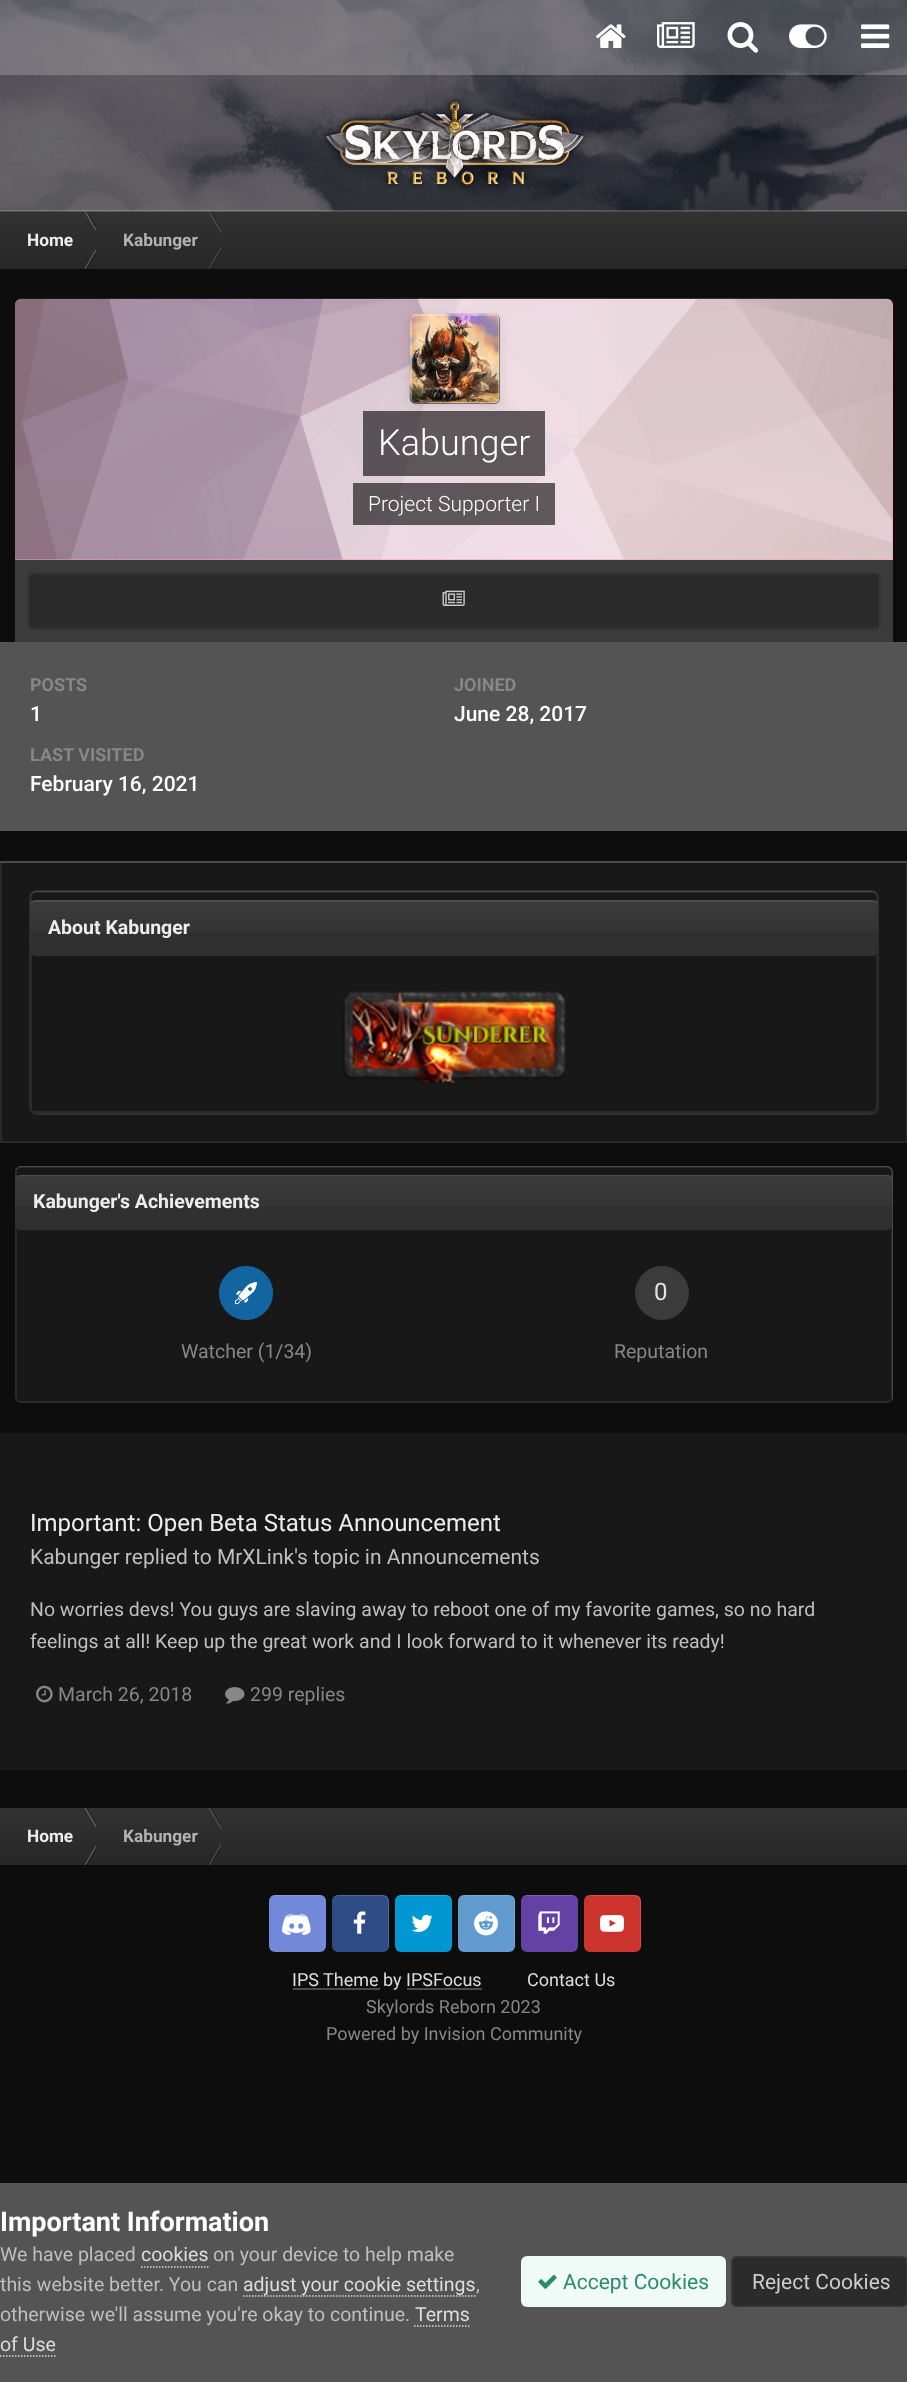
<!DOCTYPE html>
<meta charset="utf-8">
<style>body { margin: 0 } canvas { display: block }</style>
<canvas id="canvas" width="907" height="2382"></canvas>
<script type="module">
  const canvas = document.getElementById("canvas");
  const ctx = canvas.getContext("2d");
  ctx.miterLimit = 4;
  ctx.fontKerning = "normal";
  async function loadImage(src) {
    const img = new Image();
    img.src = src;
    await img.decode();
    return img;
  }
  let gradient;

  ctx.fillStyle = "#0d0d0d";
  ctx.fillRect(0, 0, 907, 2382);
  ctx.drawImage(await loadImage("img1.png"), 0, 0, 907, 212);
  ctx.drawImage(await loadImage("img2.png"), 0, 0, 907, 212);
  ctx.fillStyle = "rgba(200, 200, 200, 0.3)";
  ctx.fillRect(0, 0, 907, 75);
  ctx.drawImage(await loadImage("img3.png"), 596, 24, 30, 24);
  ctx.drawImage(await loadImage("img4.png"), 657, 22, 38, 26);
  ctx.drawImage(await loadImage("img5.png"), 727, 22, 32, 31);
  ctx.drawImage(await loadImage("img6.png"), 789, 24, 38, 24);
  ctx.drawImage(await loadImage("img7.png"), 861, 24, 29, 24);
  ctx.fillStyle = "rgba(255, 255, 255, 0.2)";
  ctx.fillRect(0, 210, 907, 2);
  ctx.drawImage(await loadImage("img8.png"), 322, 97, 265, 91);
  gradient = ctx.createLinearGradient(454, 211, 454, 269);
  gradient.addColorStop(0, "#323232");
  gradient.addColorStop(1, "#272727");
  ctx.fillStyle = gradient;
  ctx.fillRect(0, 212, 907, 57);
  ctx.save();
  ctx.beginPath();
  ctx.rect(0, 212, 96, 57);
  ctx.clip();
  ctx.fillStyle = "rgba(255, 255, 255, 0.25)";
  ctx.beginPath();
  ctx.moveTo(84.5, 211.5);
  ctx.lineTo(86, 211.5);
  ctx.lineTo(102.5, 240);
  ctx.lineTo(101, 240);
  ctx.closePath();
  ctx.fill();
  ctx.fillStyle = "rgba(0, 0, 0, 0.3)";
  ctx.beginPath();
  ctx.moveTo(86, 211.5);
  ctx.lineTo(87.5, 211.5);
  ctx.lineTo(104, 240);
  ctx.lineTo(102.5, 240);
  ctx.closePath();
  ctx.fill();
  ctx.restore();
  ctx.font = "bold 17.25px Roboto";
  ctx.fillStyle = "#ededed";
  ctx.fillText("Home", 27, 246);
  ctx.save();
  ctx.beginPath();
  ctx.rect(0, 212, 96, 57);
  ctx.clip();
  ctx.fillStyle = "rgba(255, 255, 255, 0.25)";
  ctx.beginPath();
  ctx.moveTo(84.5, 268.5);
  ctx.lineTo(86, 268.5);
  ctx.lineTo(102.5, 240);
  ctx.lineTo(101, 240);
  ctx.closePath();
  ctx.fill();
  ctx.fillStyle = "rgba(0, 0, 0, 0.3)";
  ctx.beginPath();
  ctx.moveTo(86, 268.5);
  ctx.lineTo(87.5, 268.5);
  ctx.lineTo(104, 240);
  ctx.lineTo(102.5, 240);
  ctx.closePath();
  ctx.fill();
  ctx.restore();
  ctx.save();
  ctx.beginPath();
  ctx.rect(96, 212, 125, 57);
  ctx.clip();
  ctx.fillStyle = "rgba(255, 255, 255, 0.17)";
  ctx.beginPath();
  ctx.moveTo(208.5, 211.5);
  ctx.lineTo(210, 211.5);
  ctx.lineTo(226.5, 240);
  ctx.lineTo(225, 240);
  ctx.closePath();
  ctx.fill();
  ctx.fillStyle = "rgba(0, 0, 0, 0.21)";
  ctx.beginPath();
  ctx.moveTo(210, 211.5);
  ctx.lineTo(211.5, 211.5);
  ctx.lineTo(228, 240);
  ctx.lineTo(226.5, 240);
  ctx.closePath();
  ctx.fill();
  ctx.restore();
  ctx.fillStyle = "#b3b3b3";
  ctx.fillText("Kabunger", 123, 246);
  ctx.save();
  ctx.beginPath();
  ctx.rect(96, 212, 125, 57);
  ctx.clip();
  ctx.fillStyle = "rgba(255, 255, 255, 0.17)";
  ctx.beginPath();
  ctx.moveTo(208.5, 268.5);
  ctx.lineTo(210, 268.5);
  ctx.lineTo(226.5, 240);
  ctx.lineTo(225, 240);
  ctx.closePath();
  ctx.fill();
  ctx.fillStyle = "rgba(0, 0, 0, 0.21)";
  ctx.beginPath();
  ctx.moveTo(210, 268.5);
  ctx.lineTo(211.5, 268.5);
  ctx.lineTo(228, 240);
  ctx.lineTo(226.5, 240);
  ctx.closePath();
  ctx.fill();
  ctx.restore();
  ctx.fillStyle = "#ff99c4";
  ctx.beginPath();
  ctx.roundRect(15, 299, 878, 261, [6, 6, 0, 0]);
  ctx.fill();
  ctx.drawImage(await loadImage("img9.png"), 15, 298, 878, 262);
  ctx.fillStyle = "#181818";
  ctx.beginPath();
  ctx.roundRect(410, 314, 90, 90, 6);
  ctx.fill();
  ctx.drawImage(await loadImage("img10.png"), 409, 313, 91, 91);
  ctx.fillStyle = "rgba(0, 0, 0, 0.6)";
  ctx.fillRect(363, 411, 182, 65);
  ctx.save();
  ctx.beginPath();
  ctx.moveTo(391, 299);
  ctx.lineTo(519, 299);
  ctx.lineTo(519, 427);
  ctx.lineTo(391, 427);
  ctx.closePath();
  ctx.moveTo(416, 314);
  ctx.lineTo(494, 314);
  ctx.bezierCurveTo(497.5, 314, 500, 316.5, 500, 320);
  ctx.lineTo(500, 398);
  ctx.bezierCurveTo(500, 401.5, 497.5, 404, 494, 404);
  ctx.lineTo(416, 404);
  ctx.bezierCurveTo(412.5, 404, 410, 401.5, 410, 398);
  ctx.lineTo(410, 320);
  ctx.bezierCurveTo(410, 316.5, 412.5, 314, 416, 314);
  ctx.closePath();
  ctx.clip("evenodd");
  ctx.fillStyle = "rgba(0, 0, 0, 0.1)";
  ctx.filter = "blur(6px)";
  ctx.beginPath();
  ctx.roundRect(410, 318, 90, 90, 6);
  ctx.fill();
  ctx.filter = "none";
  ctx.restore();
  ctx.beginPath();
  ctx.roundRect(411, 315, 88, 88, 5);
  ctx.strokeStyle = "rgba(255, 255, 255, 0.3)";
  ctx.lineWidth = 2;
  ctx.stroke();
  ctx.font = "300 36px Roboto";
  ctx.fillStyle = "#ffffff";
  ctx.fillText("Kabunger", 378, 455);
  ctx.fillStyle = "rgba(0, 0, 0, 0.6)";
  ctx.fillRect(353, 483, 202, 42);
  ctx.font = "300 21px Roboto";
  ctx.fillStyle = "#ffffff";
  ctx.fillText("Project Supporter I", 368, 511);
  ctx.fillStyle = "#3b3b3b";
  ctx.fillRect(15, 560, 878, 82);
  ctx.fillStyle = "#2b2b2b";
  ctx.beginPath();
  ctx.roundRect(27, 572, 854, 58, 6);
  ctx.fill();
  ctx.beginPath();
  ctx.roundRect(28, 573, 852, 56, 5);
  ctx.strokeStyle = "rgba(204, 204, 204, 0.07)";
  ctx.stroke();
  ctx.drawImage(await loadImage("img11.png"), 442, 590, 23, 16);
  ctx.fillStyle = "#545454";
  ctx.fillRect(0, 642, 907, 189);
  ctx.font = "bold 18px Roboto";
  ctx.fillStyle = "#878787";
  ctx.fillText("POSTS", 30, 691);
  ctx.font = "500 21px Roboto";
  ctx.fillStyle = "#ffffff";
  ctx.fillText("1", 30, 721);
  ctx.font = "bold 18px Roboto";
  ctx.fillStyle = "#878787";
  ctx.fillText("JOINED", 454, 691);
  ctx.font = "500 21px Roboto";
  ctx.fillStyle = "#ffffff";
  ctx.fillText("June 28, 2017", 454, 721);
  ctx.font = "bold 18px Roboto";
  ctx.fillStyle = "#878787";
  ctx.fillText("LAST VISITED", 30, 761);
  ctx.font = "500 21px Roboto";
  ctx.fillStyle = "#ffffff";
  ctx.fillText("February 16, 2021", 30, 791);
  ctx.fillStyle = "#181818";
  ctx.fillRect(0, 863, 907, 280);
  ctx.fillStyle = "#3b3b3b";
  ctx.fillRect(0, 861, 907, 2);
  ctx.strokeStyle = "rgba(255, 255, 255, 0.08)";
  ctx.strokeRect(1, 862, 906, 280);
  ctx.beginPath();
  ctx.roundRect(30, 891, 848, 223, 7);
  ctx.strokeStyle = "#2e2e2e";
  ctx.stroke();
  ctx.fillStyle = "#181818";
  ctx.beginPath();
  ctx.roundRect(30, 891, 848, 222, 6);
  ctx.fill();
  ctx.fillStyle = "rgba(255, 255, 255, 0.15)";
  ctx.beginPath();
  ctx.moveTo(36, 892);
  ctx.lineTo(872, 892);
  ctx.bezierCurveTo(875, 892, 878, 895, 878, 898);
  ctx.lineTo(878, 897);
  ctx.bezierCurveTo(878, 894, 875, 891, 872, 891);
  ctx.lineTo(36, 891);
  ctx.bezierCurveTo(33, 891, 30, 894, 30, 897);
  ctx.lineTo(30, 898);
  ctx.bezierCurveTo(30, 895, 33, 892, 36, 892);
  ctx.closePath();
  ctx.fill();
  ctx.beginPath();
  ctx.roundRect(31, 892, 846, 220, 5);
  ctx.strokeStyle = "rgba(255, 255, 255, 0.08)";
  ctx.stroke();
  ctx.fillStyle = "#303030";
  ctx.beginPath();
  ctx.roundRect(30, 900, 848, 56, 6);
  ctx.fill();
  gradient = ctx.createLinearGradient(454, 900, 454, 956);
  gradient.addColorStop(0, "rgba(255, 255, 255, 0.05)");
  gradient.addColorStop(1, "rgba(255, 255, 255, 0)");
  ctx.fillStyle = gradient;
  ctx.fillRect(30, 900, 848, 32);
  ctx.fillStyle = "rgba(255, 255, 255, 0.1)";
  ctx.beginPath();
  ctx.moveTo(36, 902);
  ctx.lineTo(872, 902);
  ctx.bezierCurveTo(875, 902, 878, 904, 878, 908);
  ctx.bezierCurveTo(878, 904, 877, 900, 872, 900);
  ctx.lineTo(36, 900);
  ctx.bezierCurveTo(31, 900, 30, 904, 30, 908);
  ctx.bezierCurveTo(30, 904, 33, 902, 36, 902);
  ctx.closePath();
  ctx.fill();
  ctx.font = "bold 19.5px Roboto";
  ctx.fillStyle = "#ededed";
  ctx.fillText("About Kabunger", 48, 934);
  ctx.drawImage(await loadImage("img12.png"), 342, 991, 224, 92);
  ctx.fillStyle = "#181818";
  ctx.beginPath();
  ctx.roundRect(15, 1166, 878, 237, 6);
  ctx.fill();
  ctx.fillStyle = "#3b3b3b";
  ctx.beginPath();
  ctx.moveTo(21, 1167);
  ctx.lineTo(886, 1167);
  ctx.bezierCurveTo(890, 1167, 892, 1170, 892, 1173);
  ctx.lineTo(892, 1398);
  ctx.bezierCurveTo(892, 1399, 892, 1400, 891, 1401);
  ctx.bezierCurveTo(892, 1400, 893, 1399, 893, 1397);
  ctx.lineTo(893, 1172);
  ctx.bezierCurveTo(893, 1169, 890, 1166, 887, 1166);
  ctx.lineTo(21, 1166);
  ctx.bezierCurveTo(18, 1166, 15, 1169, 15, 1172);
  ctx.lineTo(15, 1173);
  ctx.bezierCurveTo(15, 1170, 18, 1167, 21, 1167);
  ctx.closePath();
  ctx.fill();
  ctx.beginPath();
  ctx.roundRect(16, 1167, 876, 235, 5);
  ctx.stroke();
  ctx.fillStyle = "#303030";
  ctx.beginPath();
  ctx.roundRect(15, 1175, 878, 55, 6);
  ctx.fill();
  gradient = ctx.createLinearGradient(454, 1175, 454, 1230);
  gradient.addColorStop(0, "rgba(255, 255, 255, 0.05)");
  gradient.addColorStop(1, "rgba(255, 255, 255, 0)");
  ctx.fillStyle = gradient;
  ctx.fillRect(15, 1175, 878, 31);
  ctx.fillStyle = "rgba(255, 255, 255, 0.1)";
  ctx.beginPath();
  ctx.moveTo(21, 1176);
  ctx.lineTo(886, 1176);
  ctx.bezierCurveTo(890, 1176, 892, 1179, 892, 1182);
  ctx.lineTo(892, 1228);
  ctx.bezierCurveTo(893, 1227, 893, 1225, 893, 1224);
  ctx.lineTo(893, 1181);
  ctx.bezierCurveTo(893, 1178, 890, 1175, 887, 1175);
  ctx.lineTo(21, 1175);
  ctx.bezierCurveTo(18, 1175, 15, 1178, 15, 1181);
  ctx.lineTo(15, 1182);
  ctx.bezierCurveTo(15, 1179, 18, 1176, 21, 1176);
  ctx.closePath();
  ctx.fill();
  ctx.fillStyle = "#ededed";
  ctx.fillText("Kabunger's Achievements", 33, 1208);
  ctx.drawImage(await loadImage("img13.png"), 219, 1266, 54, 54);
  ctx.font = "19.5px Roboto";
  ctx.fillStyle = "#878787";
  ctx.fillText("Watcher (1/34)", 181, 1358);
  ctx.fillStyle = "#3b3b3b";
  ctx.beginPath();
  ctx.arc(662, 1293, 27, 0, Math.PI * 2);
  ctx.fill();
  ctx.font = "24px Roboto";
  ctx.fillStyle = "#e3e3e3";
  ctx.fillText("0", 654, 1300);
  ctx.font = "19.5px Roboto";
  ctx.fillStyle = "#878787";
  ctx.fillText("Reputation", 614, 1358);
  ctx.fillStyle = "#181818";
  ctx.fillRect(0, 1433, 907, 337);
  ctx.font = "24px Roboto";
  ctx.fillStyle = "#ededed";
  ctx.fillText("Important: Open Beta Status Announcement", 30, 1531);
  ctx.font = "21px Roboto";
  ctx.fillStyle = "#bfbfbf";
  ctx.fillText("Kabunger replied to MrXLink's topic in Announcements", 30, 1564);
  ctx.font = "19.5px Roboto";
  ctx.fillText("No worries devs! You guys are slaving away to reboot one of my favorite games, so no hard", 30, 1616);
  ctx.fillText("feelings at all! Keep up the great work and I look forward to it whenever its ready!", 30, 1648);
  ctx.drawImage(await loadImage("img14.png"), 36, 1685, 17, 18);
  ctx.fillStyle = "#878787";
  ctx.fillText("March 26, 2018", 58, 1701);
  ctx.drawImage(await loadImage("img15.png"), 225, 1687, 20, 17);
  ctx.fillText("299 replies", 250, 1701);
  gradient = ctx.createLinearGradient(454, 1808, 454, 1865);
  gradient.addColorStop(0, "#323232");
  gradient.addColorStop(1, "#272727");
  ctx.fillStyle = gradient;
  ctx.fillRect(0, 1808, 907, 57);
  ctx.save();
  ctx.beginPath();
  ctx.rect(0, 1808, 96, 57);
  ctx.clip();
  ctx.fillStyle = "rgba(255, 255, 255, 0.25)";
  ctx.beginPath();
  ctx.moveTo(84.5, 1808);
  ctx.lineTo(86, 1808);
  ctx.lineTo(102.5, 1836.5);
  ctx.lineTo(101, 1836.5);
  ctx.closePath();
  ctx.fill();
  ctx.fillStyle = "rgba(0, 0, 0, 0.3)";
  ctx.beginPath();
  ctx.moveTo(86, 1808);
  ctx.lineTo(87.5, 1808);
  ctx.lineTo(104, 1836.5);
  ctx.lineTo(102.5, 1836.5);
  ctx.closePath();
  ctx.fill();
  ctx.restore();
  ctx.font = "bold 17.25px Roboto";
  ctx.fillStyle = "#ededed";
  ctx.fillText("Home", 27, 1842);
  ctx.save();
  ctx.beginPath();
  ctx.rect(0, 1808, 96, 57);
  ctx.clip();
  ctx.fillStyle = "rgba(255, 255, 255, 0.25)";
  ctx.beginPath();
  ctx.moveTo(84.5, 1865);
  ctx.lineTo(86, 1865);
  ctx.lineTo(102.5, 1836.5);
  ctx.lineTo(101, 1836.5);
  ctx.closePath();
  ctx.fill();
  ctx.fillStyle = "rgba(0, 0, 0, 0.3)";
  ctx.beginPath();
  ctx.moveTo(86, 1865);
  ctx.lineTo(87.5, 1865);
  ctx.lineTo(104, 1836.5);
  ctx.lineTo(102.5, 1836.5);
  ctx.closePath();
  ctx.fill();
  ctx.restore();
  ctx.save();
  ctx.beginPath();
  ctx.rect(96, 1808, 125, 57);
  ctx.clip();
  ctx.fillStyle = "rgba(255, 255, 255, 0.17)";
  ctx.beginPath();
  ctx.moveTo(208.5, 1808);
  ctx.lineTo(210, 1808);
  ctx.lineTo(226.5, 1836.5);
  ctx.lineTo(225, 1836.5);
  ctx.closePath();
  ctx.fill();
  ctx.fillStyle = "rgba(0, 0, 0, 0.21)";
  ctx.beginPath();
  ctx.moveTo(210, 1808);
  ctx.lineTo(211.5, 1808);
  ctx.lineTo(228, 1836.5);
  ctx.lineTo(226.5, 1836.5);
  ctx.closePath();
  ctx.fill();
  ctx.restore();
  ctx.fillStyle = "#b3b3b3";
  ctx.fillText("Kabunger", 123, 1842);
  ctx.save();
  ctx.beginPath();
  ctx.rect(96, 1808, 125, 57);
  ctx.clip();
  ctx.fillStyle = "rgba(255, 255, 255, 0.17)";
  ctx.beginPath();
  ctx.moveTo(208.5, 1865);
  ctx.lineTo(210, 1865);
  ctx.lineTo(226.5, 1836.5);
  ctx.lineTo(225, 1836.5);
  ctx.closePath();
  ctx.fill();
  ctx.fillStyle = "rgba(0, 0, 0, 0.21)";
  ctx.beginPath();
  ctx.moveTo(210, 1865);
  ctx.lineTo(211.5, 1865);
  ctx.lineTo(228, 1836.5);
  ctx.lineTo(226.5, 1836.5);
  ctx.closePath();
  ctx.fill();
  ctx.restore();
  ctx.fillStyle = "#7289da";
  ctx.beginPath();
  ctx.roundRect(269, 1895, 57, 57, 6);
  ctx.fill();
  ctx.fillStyle = "rgba(255, 255, 255, 0.15)";
  ctx.beginPath();
  ctx.moveTo(274, 1896);
  ctx.lineTo(320, 1896);
  ctx.bezierCurveTo(323, 1896, 326, 1899, 326, 1902);
  ctx.lineTo(326, 1901);
  ctx.bezierCurveTo(326, 1898, 323, 1895, 320, 1895);
  ctx.lineTo(275, 1895);
  ctx.bezierCurveTo(273, 1895, 271, 1896, 270, 1898);
  ctx.bezierCurveTo(271, 1897, 273, 1896, 274, 1896);
  ctx.closePath();
  ctx.fill();
  ctx.drawImage(await loadImage("img16.png"), 282, 1914, 29, 21);
  ctx.fillStyle = "#304c87";
  ctx.beginPath();
  ctx.roundRect(332, 1895, 57, 57, 6);
  ctx.fill();
  ctx.drawImage(await loadImage("img17.png"), 353, 1911, 13, 23);
  ctx.fillStyle = "rgba(255, 255, 255, 0.15)";
  ctx.beginPath();
  ctx.moveTo(338, 1896);
  ctx.bezierCurveTo(334, 1896, 332, 1899, 332, 1902);
  ctx.bezierCurveTo(332, 1894, 339, 1895, 346, 1895);
  ctx.lineTo(360, 1895);
  ctx.bezierCurveTo(394, 1895, 389, 1890, 389, 1924);
  ctx.lineTo(389, 1938);
  ctx.bezierCurveTo(389, 1942, 390, 1948, 387, 1950);
  ctx.bezierCurveTo(388, 1949, 388, 1948, 388, 1947);
  ctx.lineTo(388, 1902);
  ctx.bezierCurveTo(388, 1899, 386, 1896, 382, 1896);
  ctx.closePath();
  ctx.fill();
  ctx.fillStyle = "#0097d3";
  ctx.beginPath();
  ctx.roundRect(395, 1895, 57, 57, 6);
  ctx.fill();
  ctx.fillStyle = "rgba(255, 255, 255, 0.15)";
  ctx.beginPath();
  ctx.moveTo(400, 1896);
  ctx.lineTo(446, 1896);
  ctx.bezierCurveTo(449, 1896, 452, 1899, 452, 1902);
  ctx.lineTo(452, 1901);
  ctx.bezierCurveTo(452, 1898, 449, 1895, 446, 1895);
  ctx.lineTo(401, 1895);
  ctx.bezierCurveTo(399, 1895, 397, 1896, 396, 1898);
  ctx.bezierCurveTo(397, 1897, 399, 1896, 400, 1896);
  ctx.closePath();
  ctx.fill();
  ctx.drawImage(await loadImage("img18.png"), 411, 1914, 22, 18);
  ctx.fillStyle = "#609acf";
  ctx.beginPath();
  ctx.roundRect(458, 1895, 57, 57, 6);
  ctx.fill();
  ctx.drawImage(await loadImage("img19.png"), 474, 1911, 24, 25);
  ctx.fillStyle = "rgba(255, 255, 255, 0.15)";
  ctx.beginPath();
  ctx.moveTo(464, 1896);
  ctx.bezierCurveTo(460, 1896, 458, 1899, 458, 1902);
  ctx.bezierCurveTo(458, 1894, 465, 1895, 472, 1895);
  ctx.lineTo(486, 1895);
  ctx.bezierCurveTo(520, 1895, 515, 1890, 515, 1924);
  ctx.lineTo(515, 1938);
  ctx.bezierCurveTo(515, 1942, 516, 1948, 513, 1950);
  ctx.bezierCurveTo(514, 1949, 514, 1948, 514, 1947);
  ctx.lineTo(514, 1902);
  ctx.bezierCurveTo(514, 1899, 512, 1896, 508, 1896);
  ctx.closePath();
  ctx.fill();
  ctx.fillStyle = "#6441a5";
  ctx.beginPath();
  ctx.roundRect(521, 1895, 57, 57, 6);
  ctx.fill();
  ctx.fillStyle = "rgba(255, 255, 255, 0.15)";
  ctx.beginPath();
  ctx.moveTo(526, 1896);
  ctx.lineTo(572, 1896);
  ctx.bezierCurveTo(575, 1896, 578, 1899, 578, 1902);
  ctx.lineTo(578, 1901);
  ctx.bezierCurveTo(578, 1898, 575, 1895, 572, 1895);
  ctx.lineTo(527, 1895);
  ctx.bezierCurveTo(525, 1895, 523, 1896, 522, 1898);
  ctx.bezierCurveTo(523, 1897, 525, 1896, 526, 1896);
  ctx.closePath();
  ctx.fill();
  ctx.drawImage(await loadImage("img20.png"), 538, 1911, 22, 23);
  ctx.fillStyle = "#cc332d";
  ctx.beginPath();
  ctx.roundRect(584, 1895, 57, 57, 6);
  ctx.fill();
  ctx.drawImage(await loadImage("img21.png"), 600, 1915, 24, 17);
  ctx.fillStyle = "rgba(255, 255, 255, 0.15)";
  ctx.beginPath();
  ctx.moveTo(590, 1896);
  ctx.bezierCurveTo(586, 1896, 584, 1899, 584, 1902);
  ctx.bezierCurveTo(584, 1894, 591, 1895, 598, 1895);
  ctx.lineTo(612, 1895);
  ctx.bezierCurveTo(646, 1895, 641, 1890, 641, 1924);
  ctx.lineTo(641, 1938);
  ctx.bezierCurveTo(641, 1942, 642, 1948, 639, 1950);
  ctx.bezierCurveTo(640, 1949, 640, 1948, 640, 1947);
  ctx.lineTo(640, 1902);
  ctx.bezierCurveTo(640, 1899, 638, 1896, 634, 1896);
  ctx.closePath();
  ctx.fill();
  ctx.fillStyle = "#4b4b4b";
  ctx.fillRect(293, 1988, 87, 2);
  ctx.font = "18px Roboto";
  ctx.fillStyle = "#dddddd";
  ctx.fillText("IPS Theme by IPSFocus", 292, 1986);
  ctx.fillStyle = "#4b4b4b";
  ctx.fillRect(407, 1988, 75, 2);
  ctx.fillStyle = "#dddddd";
  ctx.fillText("Contact Us", 527, 1986);
  ctx.fillStyle = "#878787";
  ctx.fillText("Skylords Reborn 2023", 366, 2013);
  ctx.fillText("Powered by Invision Community", 326, 2040);
  ctx.fillStyle = "#545454";
  ctx.fillRect(0, 2183, 907, 199);
  ctx.font = "bold 27px Roboto";
  ctx.fillStyle = "#ffffff";
  ctx.fillText("Important Information", 0, 2231);
  ctx.font = "19.5px Roboto";
  ctx.fillStyle = "#bfbfbf";
  ctx.fillText("We have placed", 0, 2261);
  ctx.fillStyle = "#dddddd";
  ctx.fillText("cookies", 141, 2261);
  ctx.beginPath();
  ctx.moveTo(141, 2267);
  ctx.lineTo(208.5, 2267);
  ctx.strokeStyle = "#dadada";
  ctx.lineWidth = 1.5;
  ctx.setLineDash([1.5, 1.5]);
  ctx.stroke();
  ctx.fillStyle = "#bfbfbf";
  ctx.fillText("on your device to help make", 213, 2261);
  ctx.fillText("this website better. You can", 0, 2291);
  ctx.beginPath();
  ctx.moveTo(243, 2296);
  ctx.lineTo(475.5, 2296);
  ctx.stroke();
  ctx.fillStyle = "#dddddd";
  ctx.fillText("adjust your cookie settings", 243, 2291);
  ctx.fillStyle = "#bfbfbf";
  ctx.fillText(",", 476, 2291);
  ctx.fillText("otherwise we'll assume you're okay to continue.", 0, 2321);
  ctx.fillStyle = "#dddddd";
  ctx.fillText("Terms", 415, 2321);
  ctx.beginPath();
  ctx.moveTo(414, 2326);
  ctx.lineTo(469.5, 2326);
  ctx.stroke();
  ctx.fillText("of Use", 0, 2351);
  ctx.beginPath();
  ctx.moveTo(0, 2356);
  ctx.lineTo(55.5, 2356);
  ctx.stroke();
  ctx.fillStyle = "#f0faf6";
  ctx.beginPath();
  ctx.roundRect(521, 2256, 205, 51, 6);
  ctx.fill();
  ctx.drawImage(await loadImage("img22.png"), 538, 2274, 19, 15);
  ctx.font = "21px Roboto";
  ctx.fillStyle = "#2c8c69";
  ctx.fillText("Accept Cookies", 563, 2289);
  ctx.fillStyle = "#2b2b2b";
  ctx.beginPath();
  ctx.roundRect(731, 2256, 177, 51, 6);
  ctx.fill();
  ctx.beginPath();
  ctx.roundRect(732, 2257, 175, 49, 5);
  ctx.strokeStyle = "rgba(204, 204, 204, 0.07)";
  ctx.lineWidth = 2;
  ctx.setLineDash([]);
  ctx.stroke();
  ctx.fillStyle = "#cccccc";
  ctx.fillText("Reject Cookies", 752, 2289);
</script>
